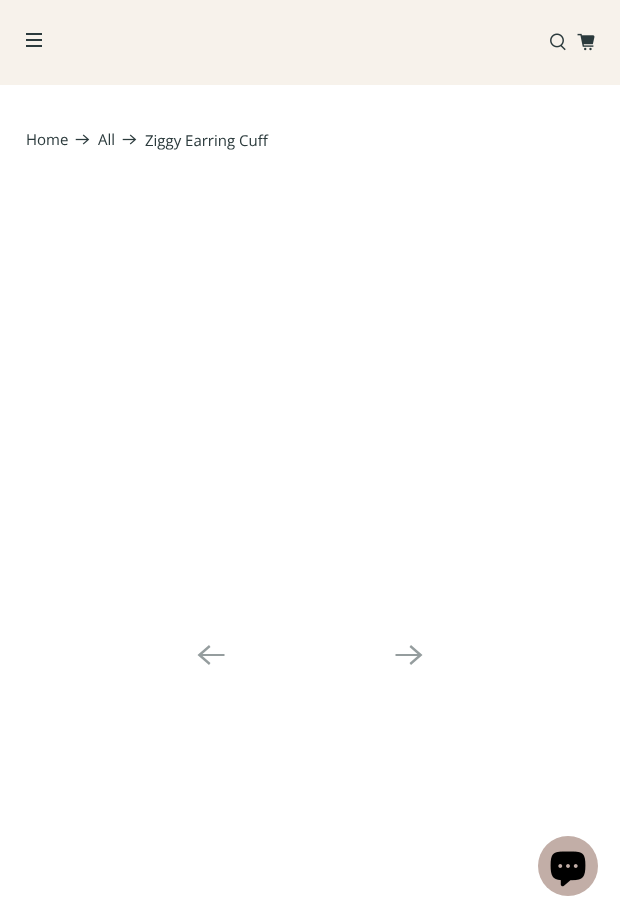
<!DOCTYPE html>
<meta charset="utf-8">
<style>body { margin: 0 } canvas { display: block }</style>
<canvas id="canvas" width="620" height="917"></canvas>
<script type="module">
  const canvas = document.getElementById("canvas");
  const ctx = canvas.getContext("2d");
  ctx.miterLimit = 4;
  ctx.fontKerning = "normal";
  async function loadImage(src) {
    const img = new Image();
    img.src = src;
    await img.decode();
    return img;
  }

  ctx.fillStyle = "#ffffff";
  ctx.fillRect(0, 0, 620, 917);
  ctx.fillStyle = "#f7f2eb";
  ctx.fillRect(0, 0, 620, 85);
  ctx.fillStyle = "#2b3a3c";
  ctx.fillRect(26, 33, 16, 2);
  ctx.fillRect(26, 39, 16, 2);
  ctx.fillRect(26, 45, 16, 2);
  ctx.drawImage(await loadImage("img1.png"), 550, 33, 16, 18);
  ctx.drawImage(await loadImage("img2.png"), 577, 33, 18, 18);
  ctx.font = "15px Open Sans";
  ctx.fillText("Home", 26, 145);
  ctx.drawImage(await loadImage("img3.png"), 75, 134, 15, 11);
  ctx.fillText("All", 98, 145);
  ctx.drawImage(await loadImage("img3.png"), 122, 134, 15, 11);
  ctx.fillText("Ziggy Earring Cuff", 145, 146);
  ctx.fillStyle = "#959d9e";
  ctx.beginPath();
  ctx.moveTo(224.5, 654);
  ctx.lineTo(202.5, 654);
  ctx.lineTo(210.5, 647);
  ctx.lineTo(209, 645);
  ctx.lineTo(197.5, 655);
  ctx.lineTo(209, 665);
  ctx.lineTo(210.5, 663);
  ctx.lineTo(202.5, 656);
  ctx.lineTo(224.5, 656);
  ctx.closePath();
  ctx.fill();
  ctx.beginPath();
  ctx.moveTo(395.5, 656);
  ctx.lineTo(417.5, 656);
  ctx.lineTo(409.5, 663);
  ctx.lineTo(411, 665);
  ctx.lineTo(422.5, 655);
  ctx.lineTo(411, 645);
  ctx.lineTo(409.5, 647);
  ctx.lineTo(417.5, 654);
  ctx.lineTo(395.5, 654);
  ctx.closePath();
  ctx.fill();
  ctx.fillStyle = "#c2aea7";
  ctx.beginPath();
  ctx.arc(568, 866, 30, 0, Math.PI * 2);
  ctx.fill();
  ctx.drawImage(await loadImage("img4.png"), 550, 851, 36, 36);
</script>
